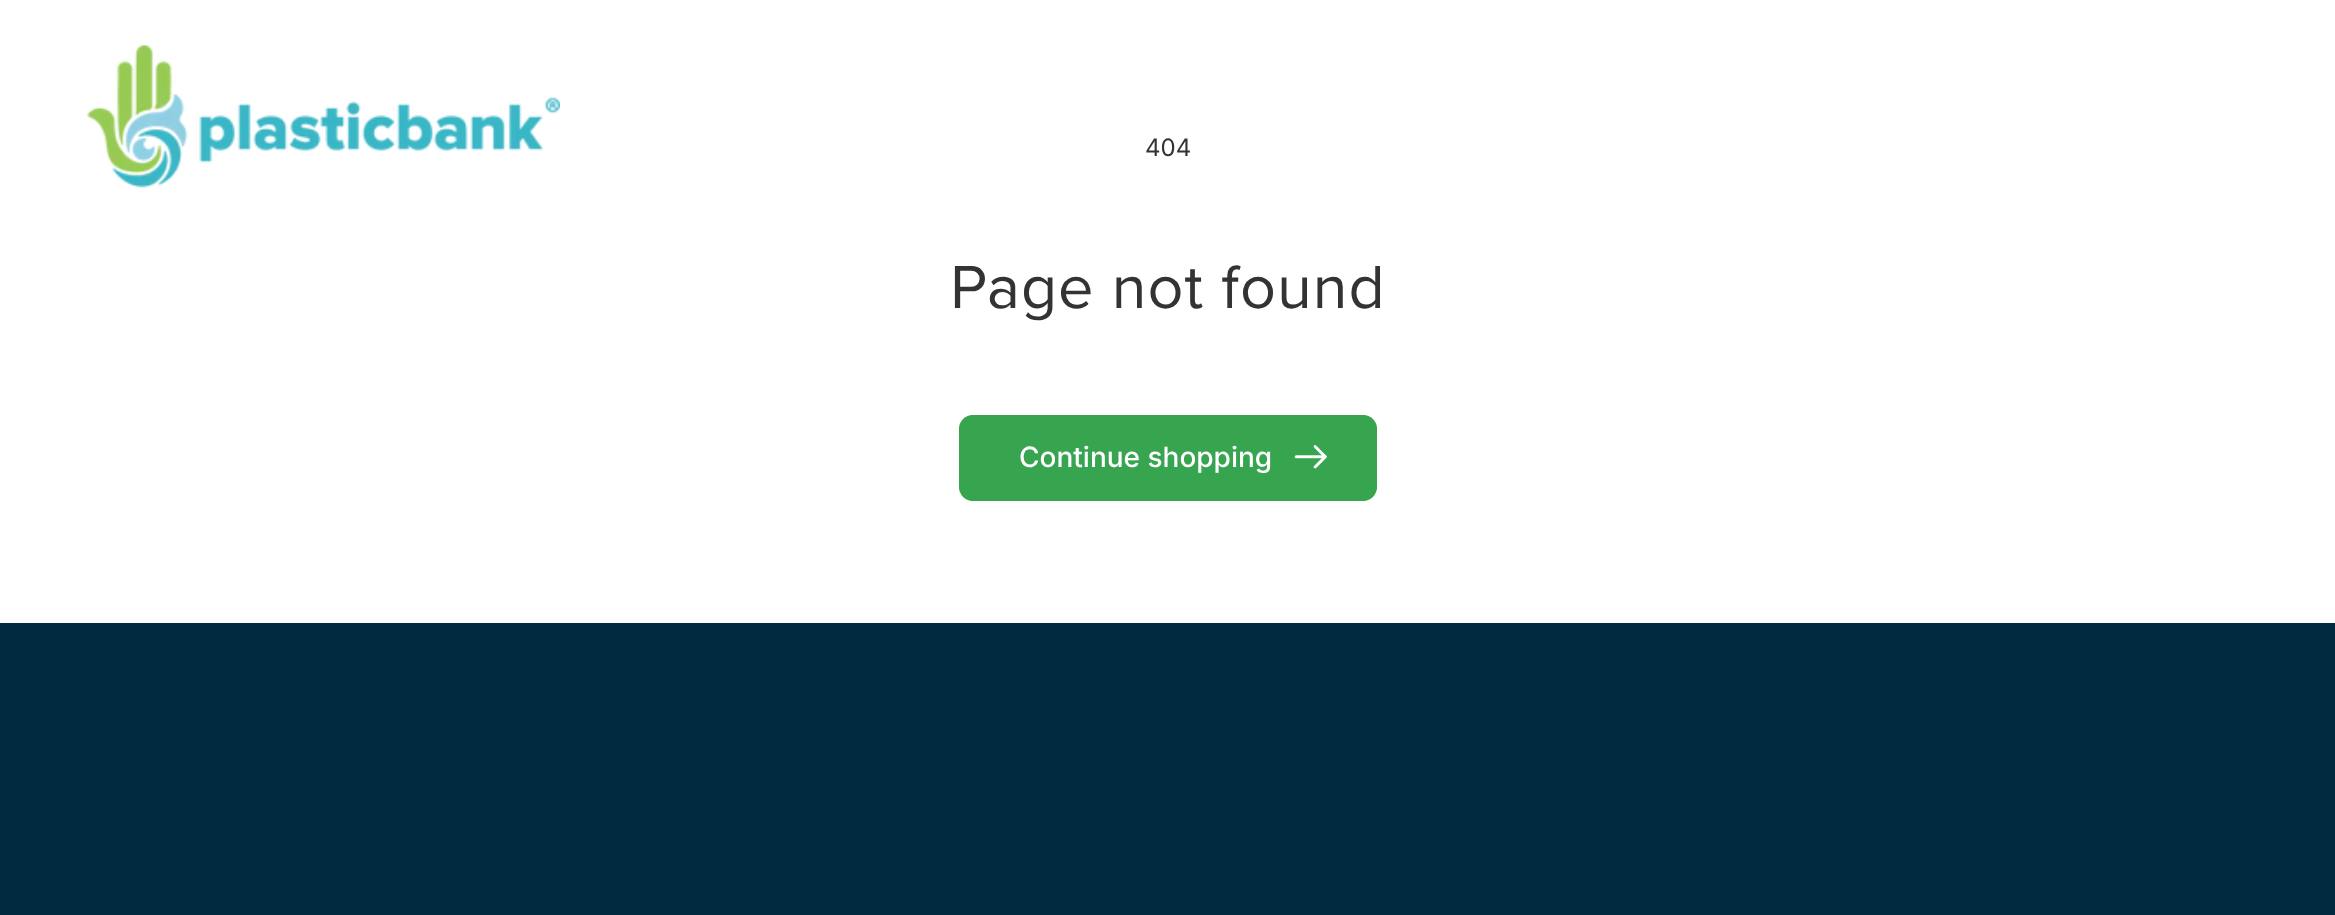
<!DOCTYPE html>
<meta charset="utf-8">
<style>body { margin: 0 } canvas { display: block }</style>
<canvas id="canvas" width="2335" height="915"></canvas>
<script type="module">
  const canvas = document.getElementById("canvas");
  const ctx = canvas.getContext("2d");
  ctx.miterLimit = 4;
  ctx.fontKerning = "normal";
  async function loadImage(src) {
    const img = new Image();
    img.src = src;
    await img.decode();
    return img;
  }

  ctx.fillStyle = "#ffffff";
  ctx.fillRect(0, 0, 2335, 915);
  ctx.drawImage(await loadImage("img1.png"), 87, 45, 473, 143);
  ctx.font = "24px Inter";
  ctx.fillStyle = "#333333";
  ctx.fillText("404", 1145, 156);
  ctx.letterSpacing = "1px";
  ctx.font = "63px Proxima Nova";
  ctx.fillText("Page not found", 950, 308);
  ctx.fillStyle = "#37a450";
  ctx.beginPath();
  ctx.roundRect(959, 415, 418, 86, 14);
  ctx.fill();
  ctx.drawImage(await loadImage("img2.png"), 1294, 445, 33, 24);
  ctx.beginPath();
  ctx.roundRect(960, 416, 416, 84, 15);
  ctx.strokeStyle = "#37a450";
  ctx.lineWidth = 2;
  ctx.stroke();
  ctx.letterSpacing = "0px";
  ctx.font = "500 28px Inter";
  ctx.fillStyle = "#ffffff";
  ctx.fillText("Continue shopping", 1019, 467);
  ctx.fillStyle = "#002a3d";
  ctx.fillRect(0, 623, 2335, 292);
</script>
